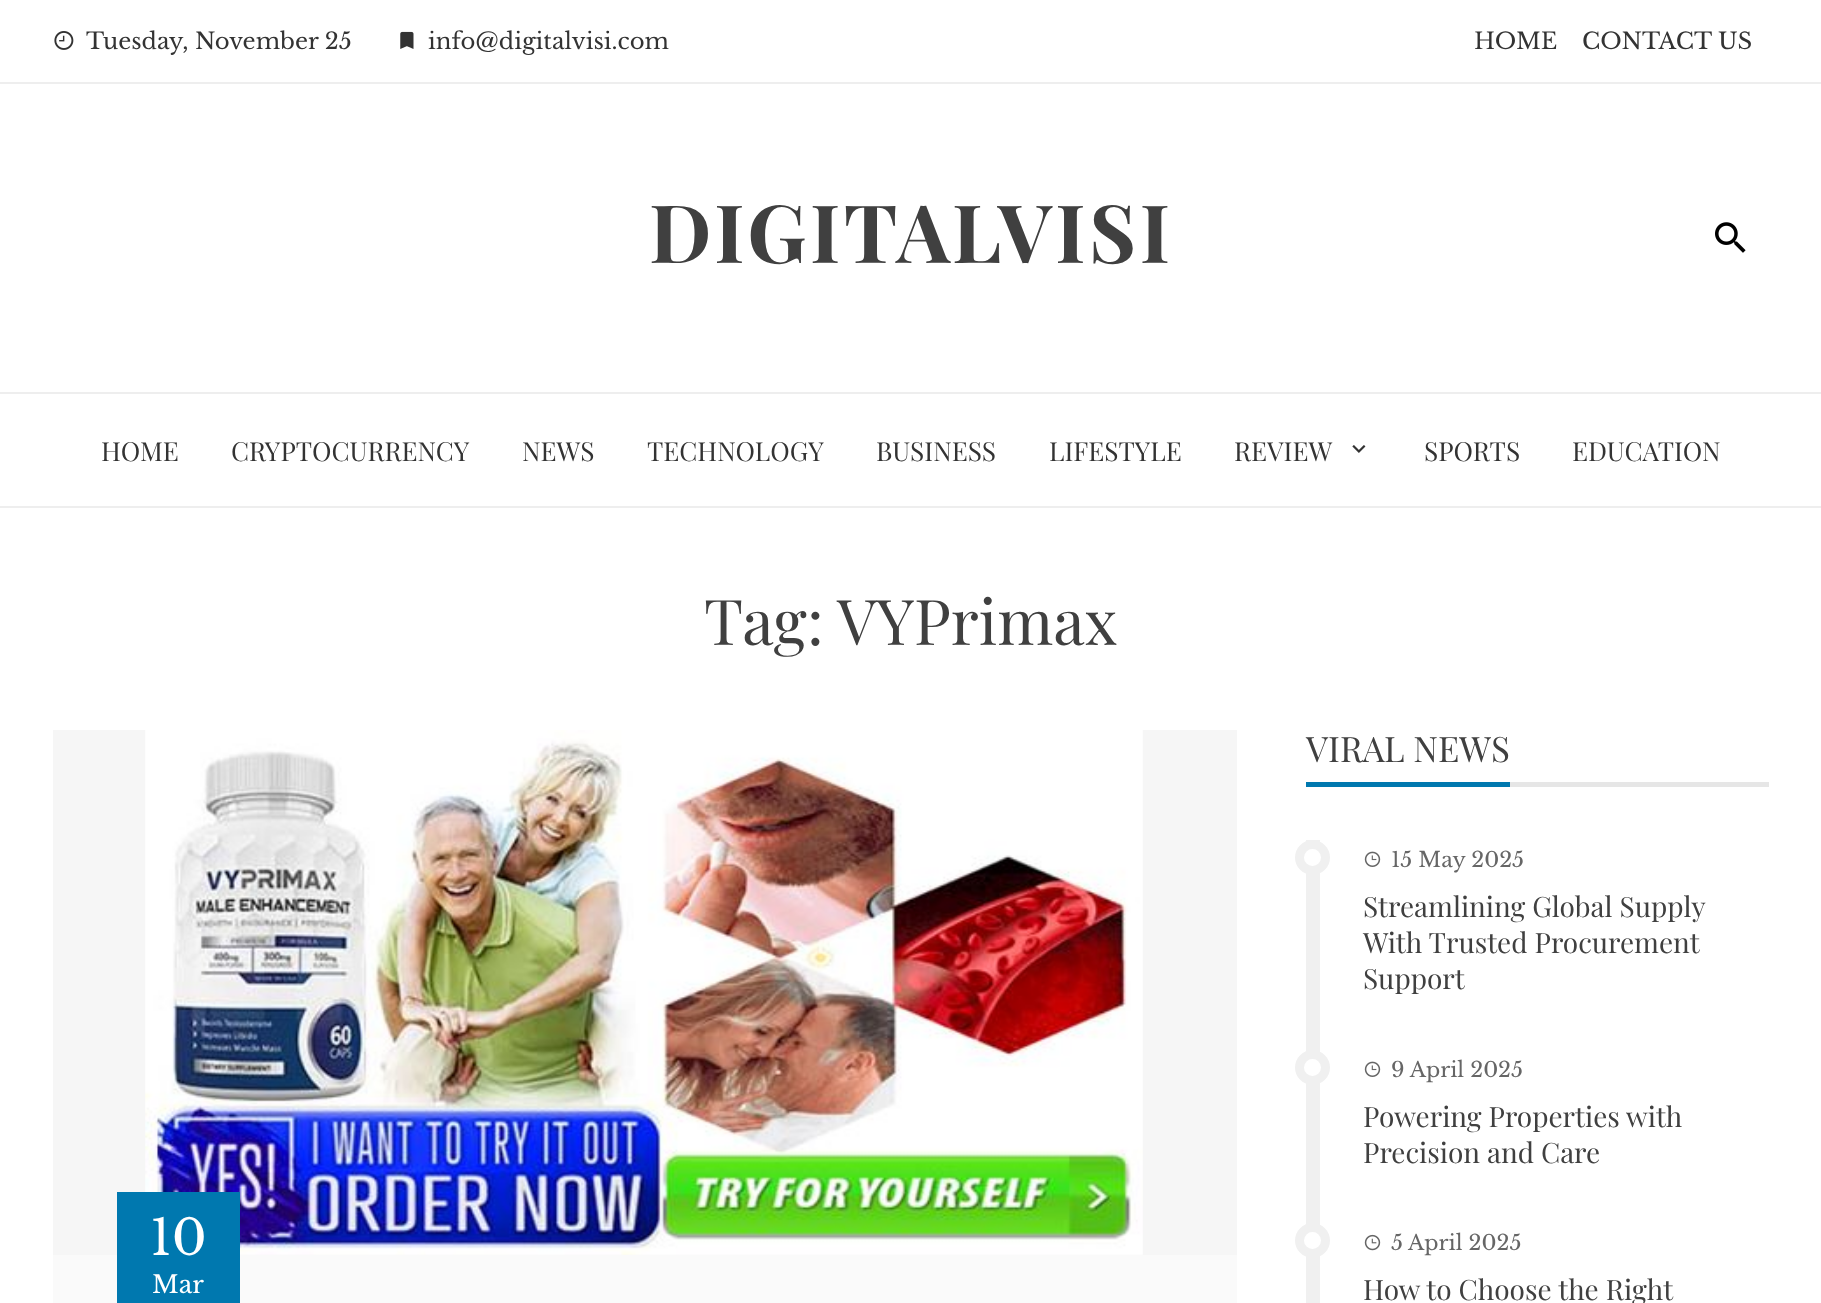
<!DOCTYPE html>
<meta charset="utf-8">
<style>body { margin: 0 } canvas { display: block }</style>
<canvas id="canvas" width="1821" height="1303"></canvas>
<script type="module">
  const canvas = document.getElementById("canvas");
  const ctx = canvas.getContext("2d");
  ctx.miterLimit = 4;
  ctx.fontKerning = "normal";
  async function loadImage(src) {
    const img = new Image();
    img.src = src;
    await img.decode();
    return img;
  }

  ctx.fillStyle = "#ffffff";
  ctx.fillRect(0, 0, 1821, 1303);
  ctx.fillStyle = "#eeeeee";
  ctx.fillRect(0, 82, 1821, 2);
  ctx.drawImage(await loadImage("img1.png"), 54, 31, 20, 19);
  ctx.font = "22.75px Libre Baskerville";
  ctx.fillStyle = "#333333";
  ctx.fillText("Tuesday, November 25", 86, 49);
  ctx.drawImage(await loadImage("img2.png"), 400, 31, 14, 18);
  ctx.fillText("info@digitalvisi.com", 428, 49);
  ctx.fillText("HOME", 1474, 49);
  ctx.fillText("CONTACT US", 1582, 49);
  ctx.letterSpacing = "3.5px";
  ctx.font = "bold 80.5px Playfair Display";
  ctx.fillStyle = "#404040";
  ctx.fillText("DIGITALVISI", 649, 263);
  ctx.drawImage(await loadImage("img3.png"), 1715, 222, 31, 31);
  ctx.fillStyle = "#eeeeee";
  ctx.fillRect(0, 392, 1821, 2);
  ctx.fillRect(0, 506, 1821, 2);
  ctx.letterSpacing = "0px";
  ctx.font = "26.25px Playfair Display";
  ctx.fillStyle = "#333333";
  ctx.fillText("HOME", 101, 461);
  ctx.fillText("CRYPTOCURRENCY", 231, 461);
  ctx.fillText("NEWS", 522, 461);
  ctx.fillText("TECHNOLOGY", 647, 461);
  ctx.fillText("BUSINESS", 876, 461);
  ctx.fillText("LIFESTYLE", 1049, 461);
  ctx.fillText("REVIEW", 1234, 461);
  ctx.drawImage(await loadImage("img4.png"), 1352, 445, 14, 8);
  ctx.fillText("SPORTS", 1424, 461);
  ctx.fillText("EDUCATION", 1572, 461);
  ctx.font = "63px Playfair Display";
  ctx.fillStyle = "#404040";
  ctx.fillText("Tag:", 704, 645);
  ctx.fillText("VYPrimax", 837, 645);
  ctx.fillStyle = "#f6f6f6";
  ctx.fillRect(53, 730, 1184, 525);
  ctx.drawImage(await loadImage("img5.png"), 145, 730, 998, 525);
  ctx.fillStyle = "#fafafa";
  ctx.fillRect(53, 1255, 1184, 48);
  ctx.fillStyle = "#0078af";
  ctx.fillRect(117, 1192, 123, 111);
  ctx.font = "49px Libre Baskerville";
  ctx.fillStyle = "#ffffff";
  ctx.fillText("10", 150, 1255);
  ctx.font = "24.5px Libre Baskerville";
  ctx.fillText("Mar", 152, 1293);
  ctx.fillStyle = "#e6e6e6";
  ctx.fillRect(1510, 782, 259, 5);
  ctx.font = "35px Playfair Display";
  ctx.fillStyle = "#404040";
  ctx.fillText("VIRAL NEWS", 1306, 762);
  ctx.fillStyle = "#0078af";
  ctx.fillRect(1306, 782, 204, 5);
  ctx.fillStyle = "#f0f0f0";
  ctx.fillRect(1306, 840, 14, 463);
  ctx.fillStyle = "#ffffff";
  ctx.beginPath();
  ctx.arc(1312.5, 857.5, 13, 0, Math.PI * 2);
  ctx.fill();
  ctx.strokeStyle = "#f0f0f0";
  ctx.lineWidth = 9;
  ctx.stroke();
  ctx.drawImage(await loadImage("img6.png"), 1364, 851, 17, 16);
  ctx.font = "21px Libre Baskerville";
  ctx.fillStyle = "#666666";
  ctx.fillText("15 May 2025", 1391, 867);
  ctx.font = "28px Playfair Display";
  ctx.fillStyle = "#404040";
  ctx.fillText("Streamlining Global Supply", 1363, 917);
  ctx.fillText("With Trusted Procurement", 1363, 953);
  ctx.fillText("Support", 1363, 989);
  ctx.fillStyle = "#ffffff";
  ctx.beginPath();
  ctx.arc(1312.5, 1067.5, 13, 0, Math.PI * 2);
  ctx.fill();
  ctx.stroke();
  ctx.drawImage(await loadImage("img6.png"), 1364, 1061, 17, 16);
  ctx.font = "21px Libre Baskerville";
  ctx.fillStyle = "#666666";
  ctx.fillText("9 April 2025", 1391, 1077);
  ctx.font = "28px Playfair Display";
  ctx.fillStyle = "#404040";
  ctx.fillText("Powering Properties with", 1363, 1127);
  ctx.fillText("Precision and Care", 1363, 1163);
  ctx.fillStyle = "#ffffff";
  ctx.beginPath();
  ctx.arc(1312.5, 1240.5, 13, 0, Math.PI * 2);
  ctx.fill();
  ctx.stroke();
  ctx.drawImage(await loadImage("img7.png"), 1364, 1234, 17, 17);
  ctx.font = "21px Libre Baskerville";
  ctx.fillStyle = "#666666";
  ctx.fillText("5 April 2025", 1391, 1250);
  ctx.font = "28px Playfair Display";
  ctx.fillStyle = "#404040";
  ctx.fillText("How to Choose the Right", 1363, 1300);
</script>
